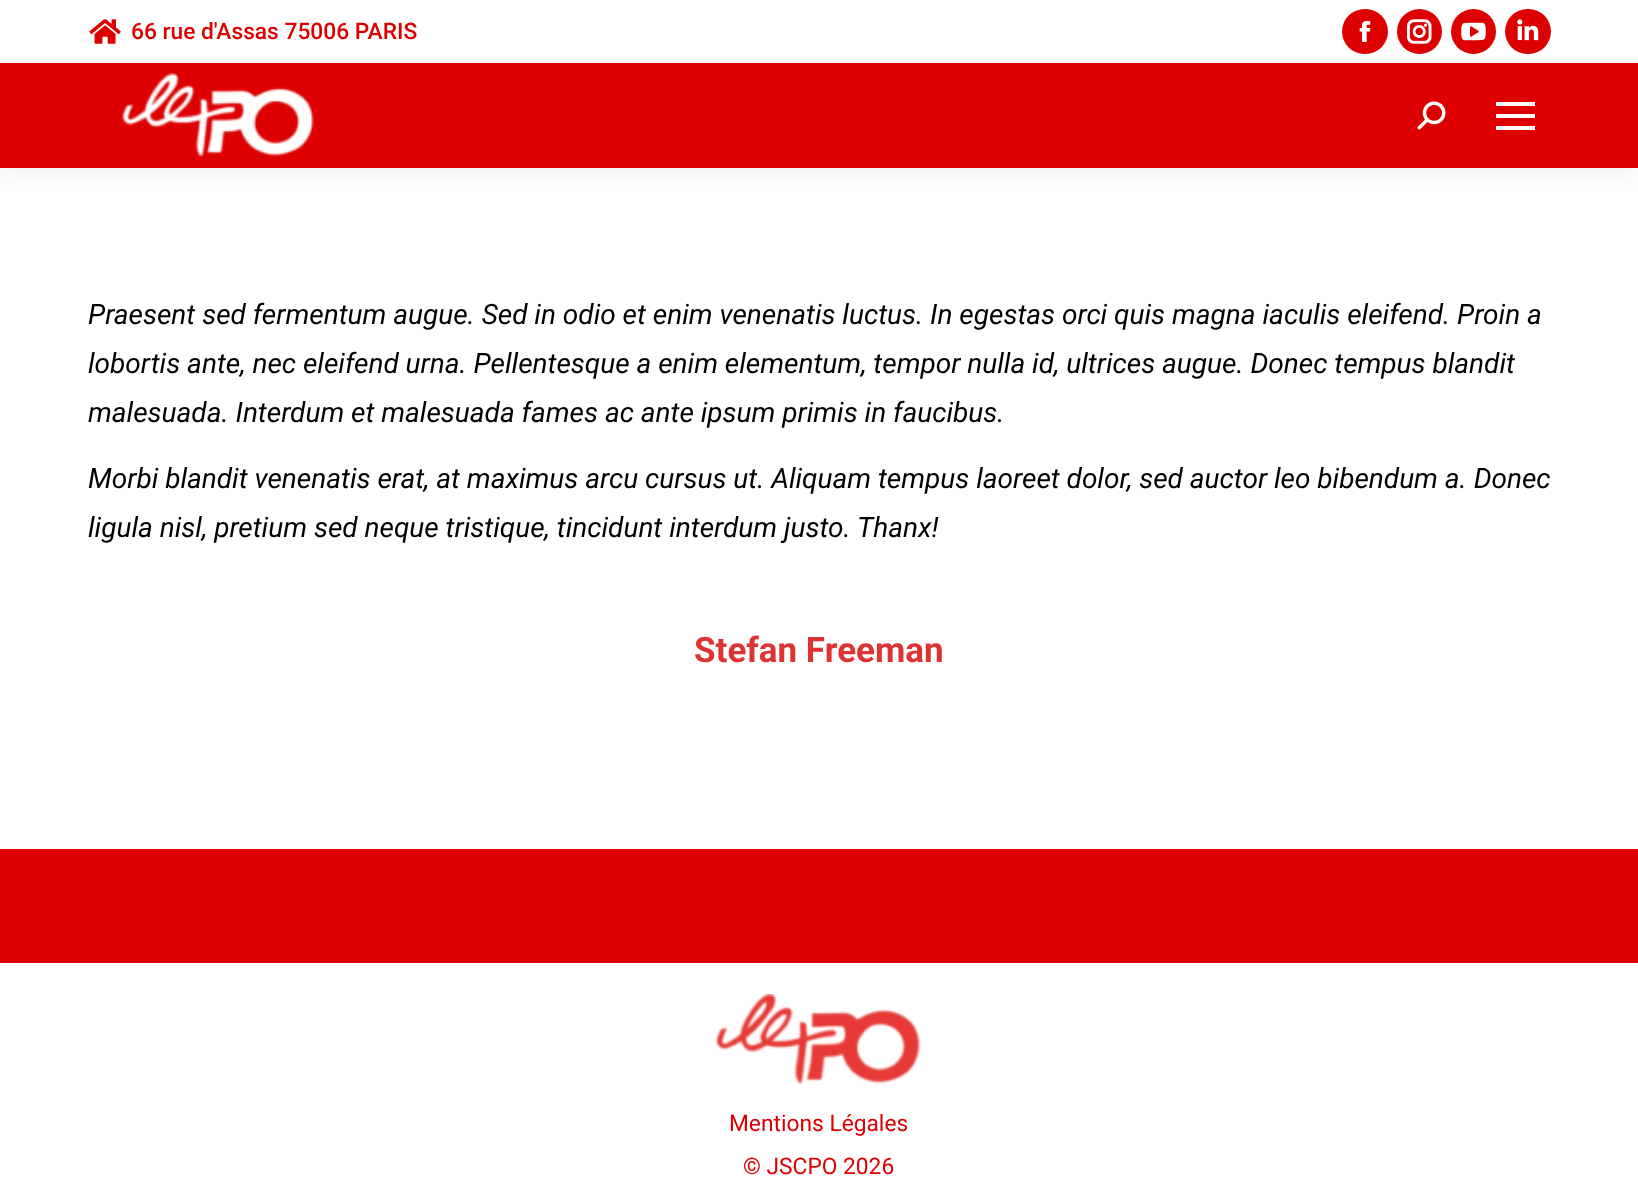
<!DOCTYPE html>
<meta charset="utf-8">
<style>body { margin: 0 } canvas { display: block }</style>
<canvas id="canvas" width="1638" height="1184"></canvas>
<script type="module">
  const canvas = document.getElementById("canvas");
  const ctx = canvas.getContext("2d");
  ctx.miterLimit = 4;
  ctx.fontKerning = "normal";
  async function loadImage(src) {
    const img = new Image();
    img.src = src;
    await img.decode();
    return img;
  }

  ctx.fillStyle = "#ffffff";
  ctx.fillRect(0, 0, 1638, 1184);
  ctx.fillStyle = "rgba(0, 0, 0, 0.07)";
  ctx.filter = "blur(13px)";
  ctx.beginPath();
  ctx.rect(-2, -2, 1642, 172);
  ctx.fill();
  ctx.filter = "none";
  ctx.fillStyle = "#dd0000";
  ctx.fillRect(0, 63, 1638, 105);
  ctx.fillStyle = "#ffffff";
  ctx.fillRect(0, 0, 1638, 63);
  ctx.drawImage(await loadImage("img1.png"), 89, 19, 32, 25);
  ctx.font = "500 22.75px Roboto";
  ctx.fillStyle = "#dd0000";
  ctx.fillText("66 rue d'Assas 75006 PARIS", 131, 39);
  ctx.beginPath();
  ctx.roundRect(1342, 9, 46, 45, 22.5);
  ctx.fill();
  ctx.drawImage(await loadImage("img2.png"), 1359, 21, 12, 21);
  ctx.beginPath();
  ctx.arc(1419.5, 31.5, 22.5, 0, Math.PI * 2);
  ctx.fill();
  ctx.drawImage(await loadImage("img3.png"), 1407, 19, 25, 25);
  ctx.beginPath();
  ctx.arc(1473.5, 31.5, 22.5, 0, Math.PI * 2);
  ctx.fill();
  ctx.drawImage(await loadImage("img4.png"), 1461, 22, 25, 19);
  ctx.beginPath();
  ctx.roundRect(1505, 9, 46, 45, 22.5);
  ctx.fill();
  ctx.drawImage(await loadImage("img5.png"), 1517, 19, 22, 22);
  ctx.drawImage(await loadImage("img6.png"), 122, 73, 192, 84);
  ctx.drawImage(await loadImage("img7.png"), 1417, 101, 29, 29);
  ctx.fillStyle = "#ffffff";
  ctx.fillRect(1496, 102, 39, 4);
  ctx.fillRect(1496, 114, 39, 4);
  ctx.fillRect(1496, 126, 39, 4);
  ctx.font = "italic 28px Roboto";
  ctx.fillStyle = "#000000";
  ctx.fillText("Praesent sed fermentum augue. Sed in odio et enim venenatis luctus. In egestas orci quis magna iaculis eleifend. Proin a", 88, 324);
  ctx.fillText("lobortis ante, nec eleifend urna. Pellentesque a enim elementum, tempor nulla id, ultrices augue. Donec tempus blandit", 88, 373);
  ctx.fillText("malesuada. Interdum et malesuada fames ac ante ipsum primis in faucibus.", 88, 422);
  ctx.fillText("Morbi blandit venenatis erat, at maximus arcu cursus ut. Aliquam tempus laoreet dolor, sed auctor leo bibendum a. Donec", 88, 488);
  ctx.fillText("ligula nisl, pretium sed neque tristique, tincidunt interdum justo. Thanx!", 88, 537);
  ctx.font = "bold 35px Roboto";
  ctx.fillStyle = "#dd3333";
  ctx.fillText("Stefan Freeman", 694, 662);
  ctx.fillStyle = "#dd0000";
  ctx.fillRect(0, 849, 1638, 114);
  ctx.drawImage(await loadImage("img8.png"), 715, 994, 206, 91);
  ctx.font = "22.75px Roboto";
  ctx.fillText("Mentions Légales", 729, 1131);
  ctx.fillText("© JSCPO 2026", 743, 1174);
</script>
